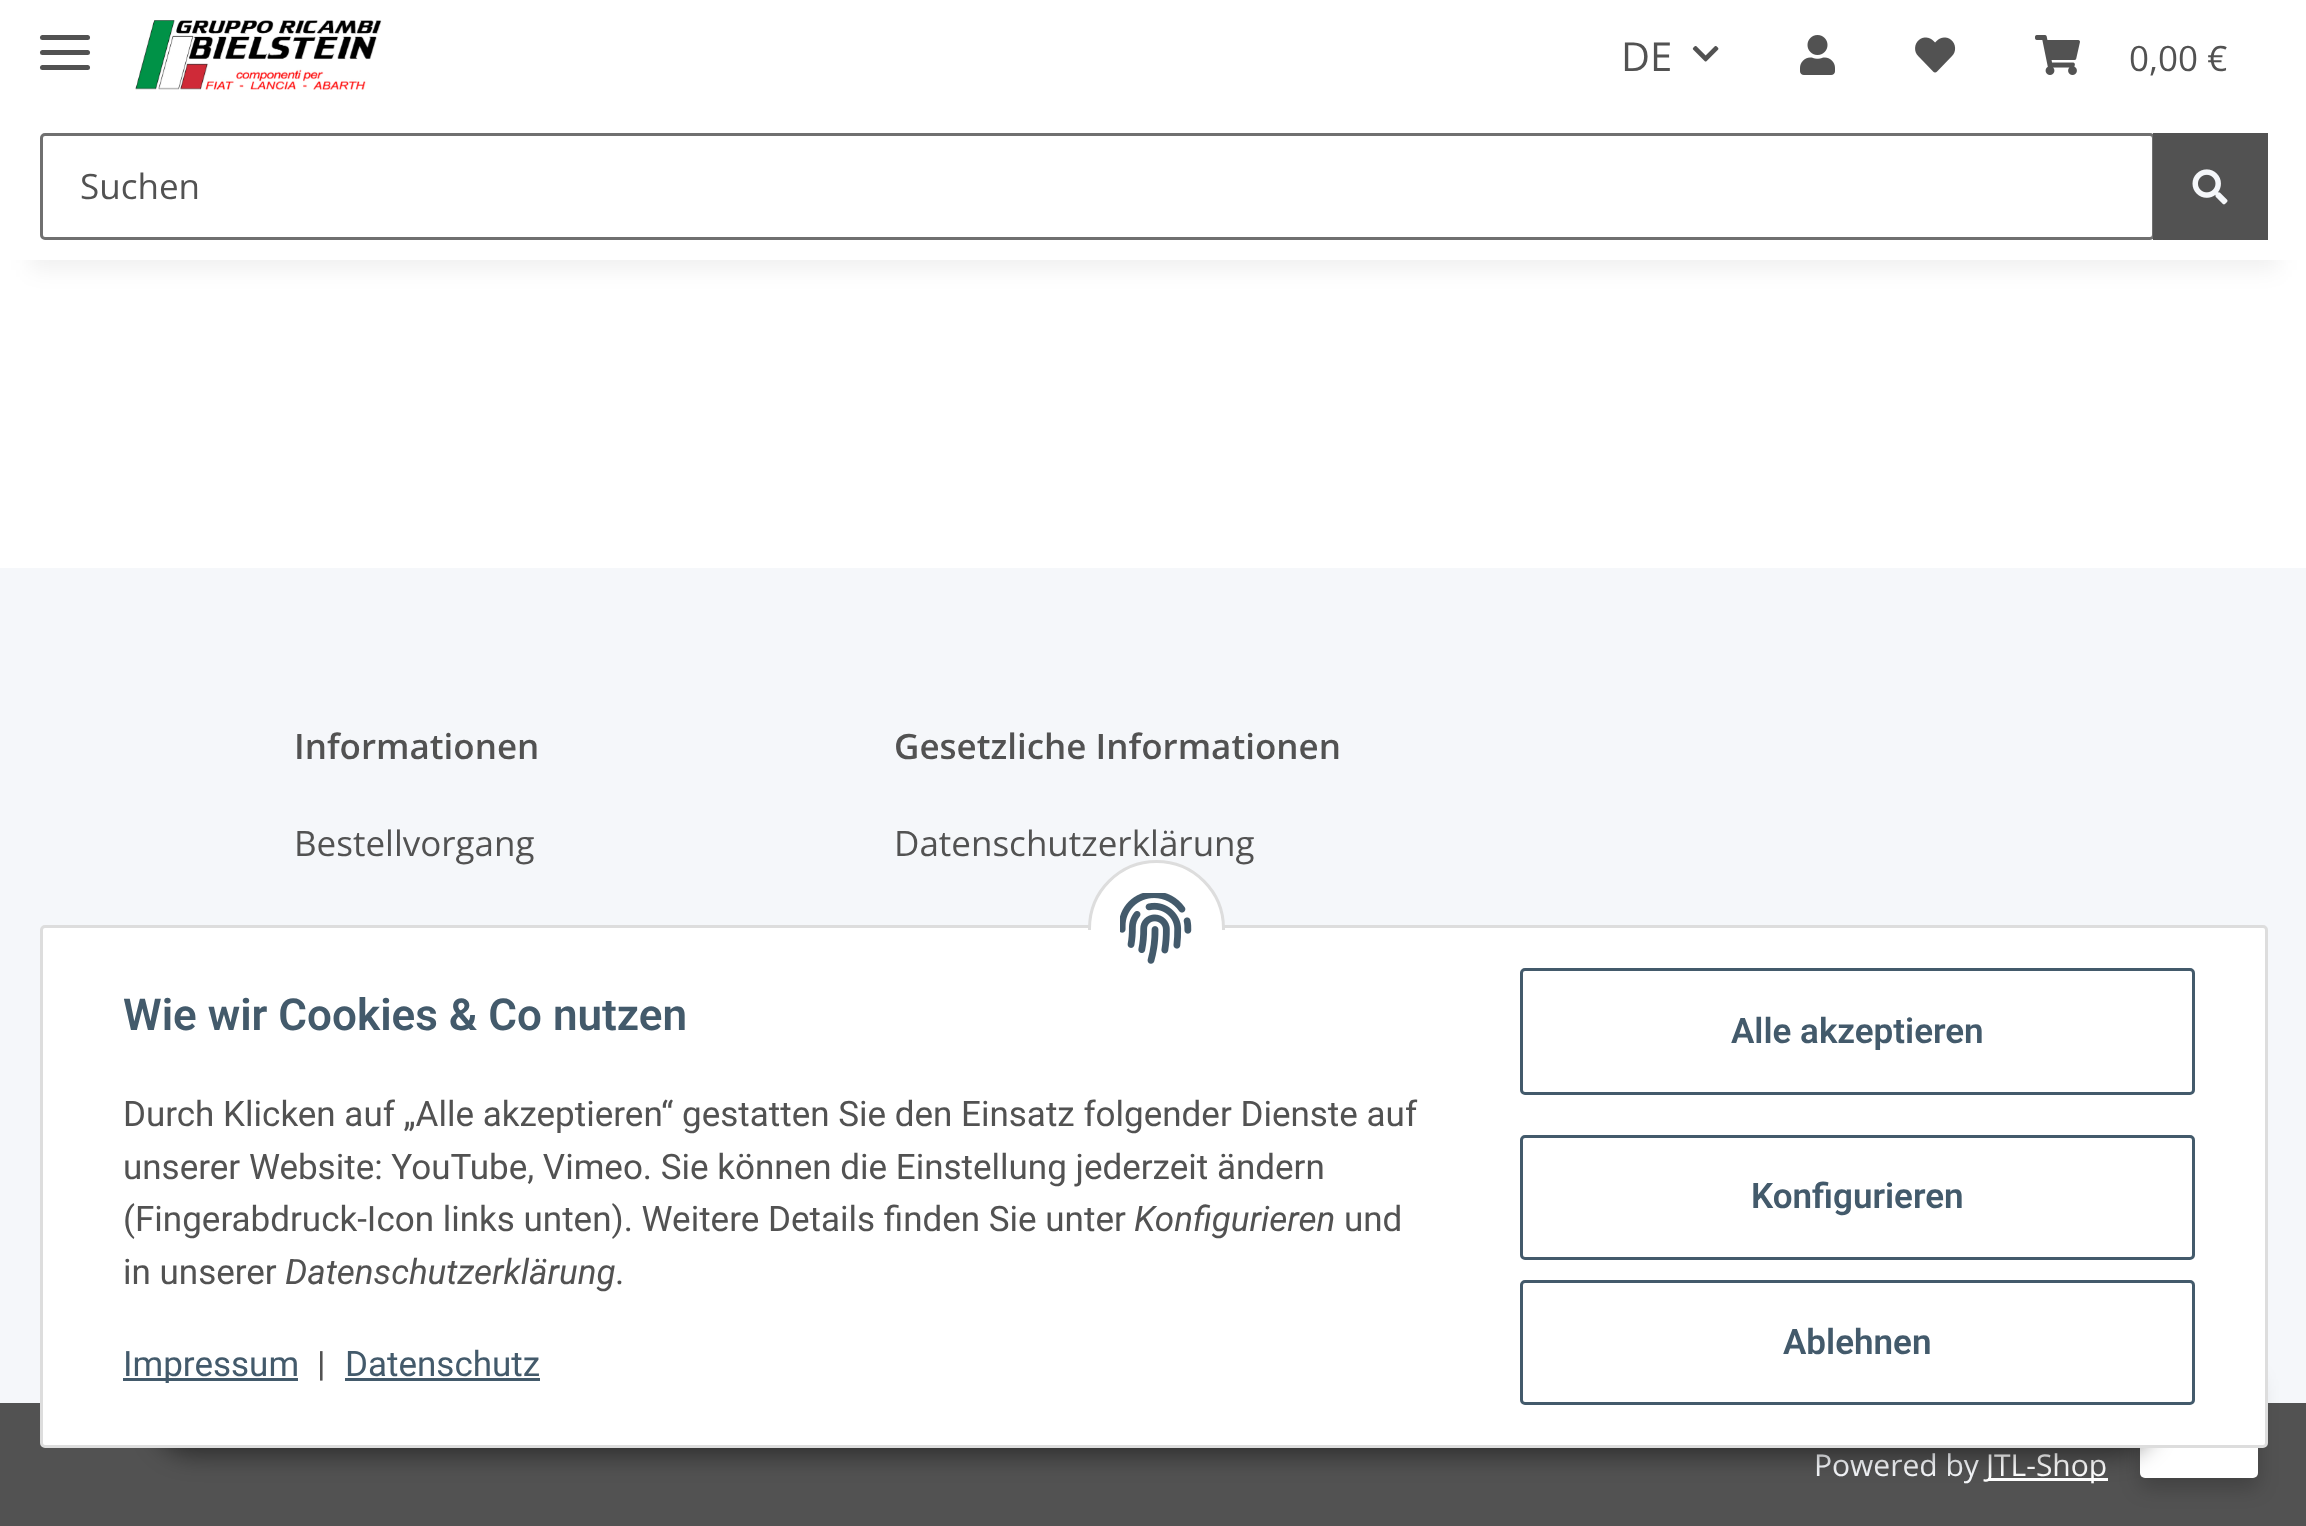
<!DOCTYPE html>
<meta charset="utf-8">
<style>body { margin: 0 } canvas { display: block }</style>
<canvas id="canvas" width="2306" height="1526"></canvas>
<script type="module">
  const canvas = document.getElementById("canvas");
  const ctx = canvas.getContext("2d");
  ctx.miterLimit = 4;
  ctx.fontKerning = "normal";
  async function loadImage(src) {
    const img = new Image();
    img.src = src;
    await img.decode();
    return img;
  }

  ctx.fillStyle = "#f5f7fa";
  ctx.fillRect(0, 0, 2306, 1526);
  ctx.fillStyle = "#ffffff";
  ctx.fillRect(0, 260, 2306, 308);
  ctx.fillStyle = "rgba(0, 0, 0, 0.06)";
  ctx.filter = "blur(11px)";
  ctx.beginPath();
  ctx.rect(30, 70, 2248, 200);
  ctx.fill();
  ctx.filter = "none";
  ctx.fillStyle = "#ffffff";
  ctx.fillRect(0, 0, 2306, 260);
  ctx.fillStyle = "#525252";
  ctx.beginPath();
  ctx.roundRect(40, 50, 50, 5, 2.5);
  ctx.fill();
  ctx.beginPath();
  ctx.roundRect(40, 35, 50, 5, 2.5);
  ctx.fill();
  ctx.beginPath();
  ctx.roundRect(40, 65, 50, 5, 2.5);
  ctx.fill();
  ctx.drawImage(await loadImage("img1.png"), 135, 20, 247, 70);
  ctx.font = "40px Open Sans";
  ctx.fillText("DE", 1621, 71);
  ctx.drawImage(await loadImage("img2.png"), 1692, 46, 27, 16);
  ctx.drawImage(await loadImage("img3.png"), 1800, 35, 35, 40);
  ctx.drawImage(await loadImage("img4.png"), 1915, 37, 41, 36);
  ctx.drawImage(await loadImage("img5.png"), 2035, 35, 45, 40);
  ctx.font = "35px Open Sans";
  ctx.fillText("0,00 €", 2129, 71);
  ctx.beginPath();
  ctx.roundRect(41.5, 134.5, 2112, 104, 3.5);
  ctx.strokeStyle = "#707070";
  ctx.lineWidth = 3;
  ctx.stroke();
  ctx.fillText("Suchen", 80, 199);
  ctx.fillRect(2153, 133, 115, 107);
  ctx.drawImage(await loadImage("img6.png"), 2192, 169, 36, 36);
  ctx.font = "600 35px Open Sans";
  ctx.fillText("Informationen", 294, 759);
  ctx.font = "35px Open Sans";
  ctx.fillText("Bestellvorgang", 294, 856);
  ctx.font = "600 35px Open Sans";
  ctx.fillText("Gesetzliche Informationen", 894, 759);
  ctx.font = "35px Open Sans";
  ctx.fillText("Datenschutzerklärung", 894, 856);
  ctx.fillRect(0, 1403, 2306, 123);
  ctx.font = "30px Open Sans";
  ctx.fillStyle = "#f5f7fa";
  ctx.fillText("Powered by", 1814, 1476);
  ctx.fillStyle = "#ffffff";
  ctx.fillRect(1988, 1478, 120, 3);
  ctx.fillText("JTL-Shop", 1986, 1476);
  ctx.fillStyle = "rgba(0, 0, 0, 0.2)";
  ctx.filter = "blur(10px)";
  ctx.beginPath();
  ctx.roundRect(2140, 1378, 118, 110, 5);
  ctx.fill();
  ctx.filter = "none";
  ctx.fillStyle = "#ffffff";
  ctx.beginPath();
  ctx.roundRect(2140, 1368, 118, 110, 5);
  ctx.fill();
  ctx.fillStyle = "rgba(0, 0, 0, 0.45)";
  ctx.filter = "blur(12.5px)";
  ctx.beginPath();
  ctx.roundRect(153, 1375, 2002, 80, 40);
  ctx.fill();
  ctx.filter = "none";
  ctx.fillStyle = "#ffffff";
  ctx.beginPath();
  ctx.roundRect(41.5, 926.5, 2225, 520, 3.5);
  ctx.fill();
  ctx.strokeStyle = "#dddddd";
  ctx.stroke();
  ctx.beginPath();
  ctx.roundRect(1089.5, 861.5, 134, 135, 67);
  ctx.fill();
  ctx.stroke();
  ctx.fillRect(1088, 930, 137, 68);
  ctx.drawImage(await loadImage("img7.png"), 1120, 893, 72, 71);
  ctx.font = "600 44px Roboto";
  ctx.fillStyle = "#435a6b";
  ctx.fillText("Wie wir Cookies & Co nutzen", 123, 1030);
  ctx.font = "35px Roboto";
  ctx.fillStyle = "#525252";
  ctx.fillText("Durch Klicken auf „Alle akzeptieren“ gestatten Sie den Einsatz folgender Dienste auf", 123, 1126);
  ctx.fillText("unserer Website: YouTube, Vimeo. Sie können die Einstellung jederzeit ändern", 123, 1179);
  ctx.fillText("(Fingerabdruck-Icon links unten). Weitere Details finden Sie unter", 123, 1231);
  ctx.font = "italic 35px Roboto";
  ctx.fillText("Konfigurieren", 1134, 1231);
  ctx.font = "35px Roboto";
  ctx.fillText("und", 1344, 1231);
  ctx.fillText("in unserer", 123, 1284);
  ctx.font = "italic 35px Roboto";
  ctx.fillText("Datenschutzerklärung", 285, 1284);
  ctx.font = "35px Roboto";
  ctx.fillText(".", 615, 1284);
  ctx.fillStyle = "#435a6b";
  ctx.fillRect(123, 1378, 175, 3);
  ctx.fillText("Impressum", 123, 1376);
  ctx.fillStyle = "#525252";
  ctx.fillText("|", 317, 1376);
  ctx.fillStyle = "#435a6b";
  ctx.fillText("Datenschutz", 345, 1376);
  ctx.fillRect(345, 1378, 195, 3);
  ctx.beginPath();
  ctx.roundRect(1521.5, 969.5, 672, 124, 3.5);
  ctx.strokeStyle = "#435a6b";
  ctx.stroke();
  ctx.font = "600 35px Roboto";
  ctx.fillText("Alle akzeptieren", 1731, 1043);
  ctx.beginPath();
  ctx.roundRect(1521.5, 1136.5, 672, 122, 3.5);
  ctx.stroke();
  ctx.fillText("Konfigurieren", 1751, 1208);
  ctx.beginPath();
  ctx.roundRect(1521.5, 1281.5, 672, 122, 3.5);
  ctx.stroke();
  ctx.fillText("Ablehnen", 1783, 1354);
</script>
